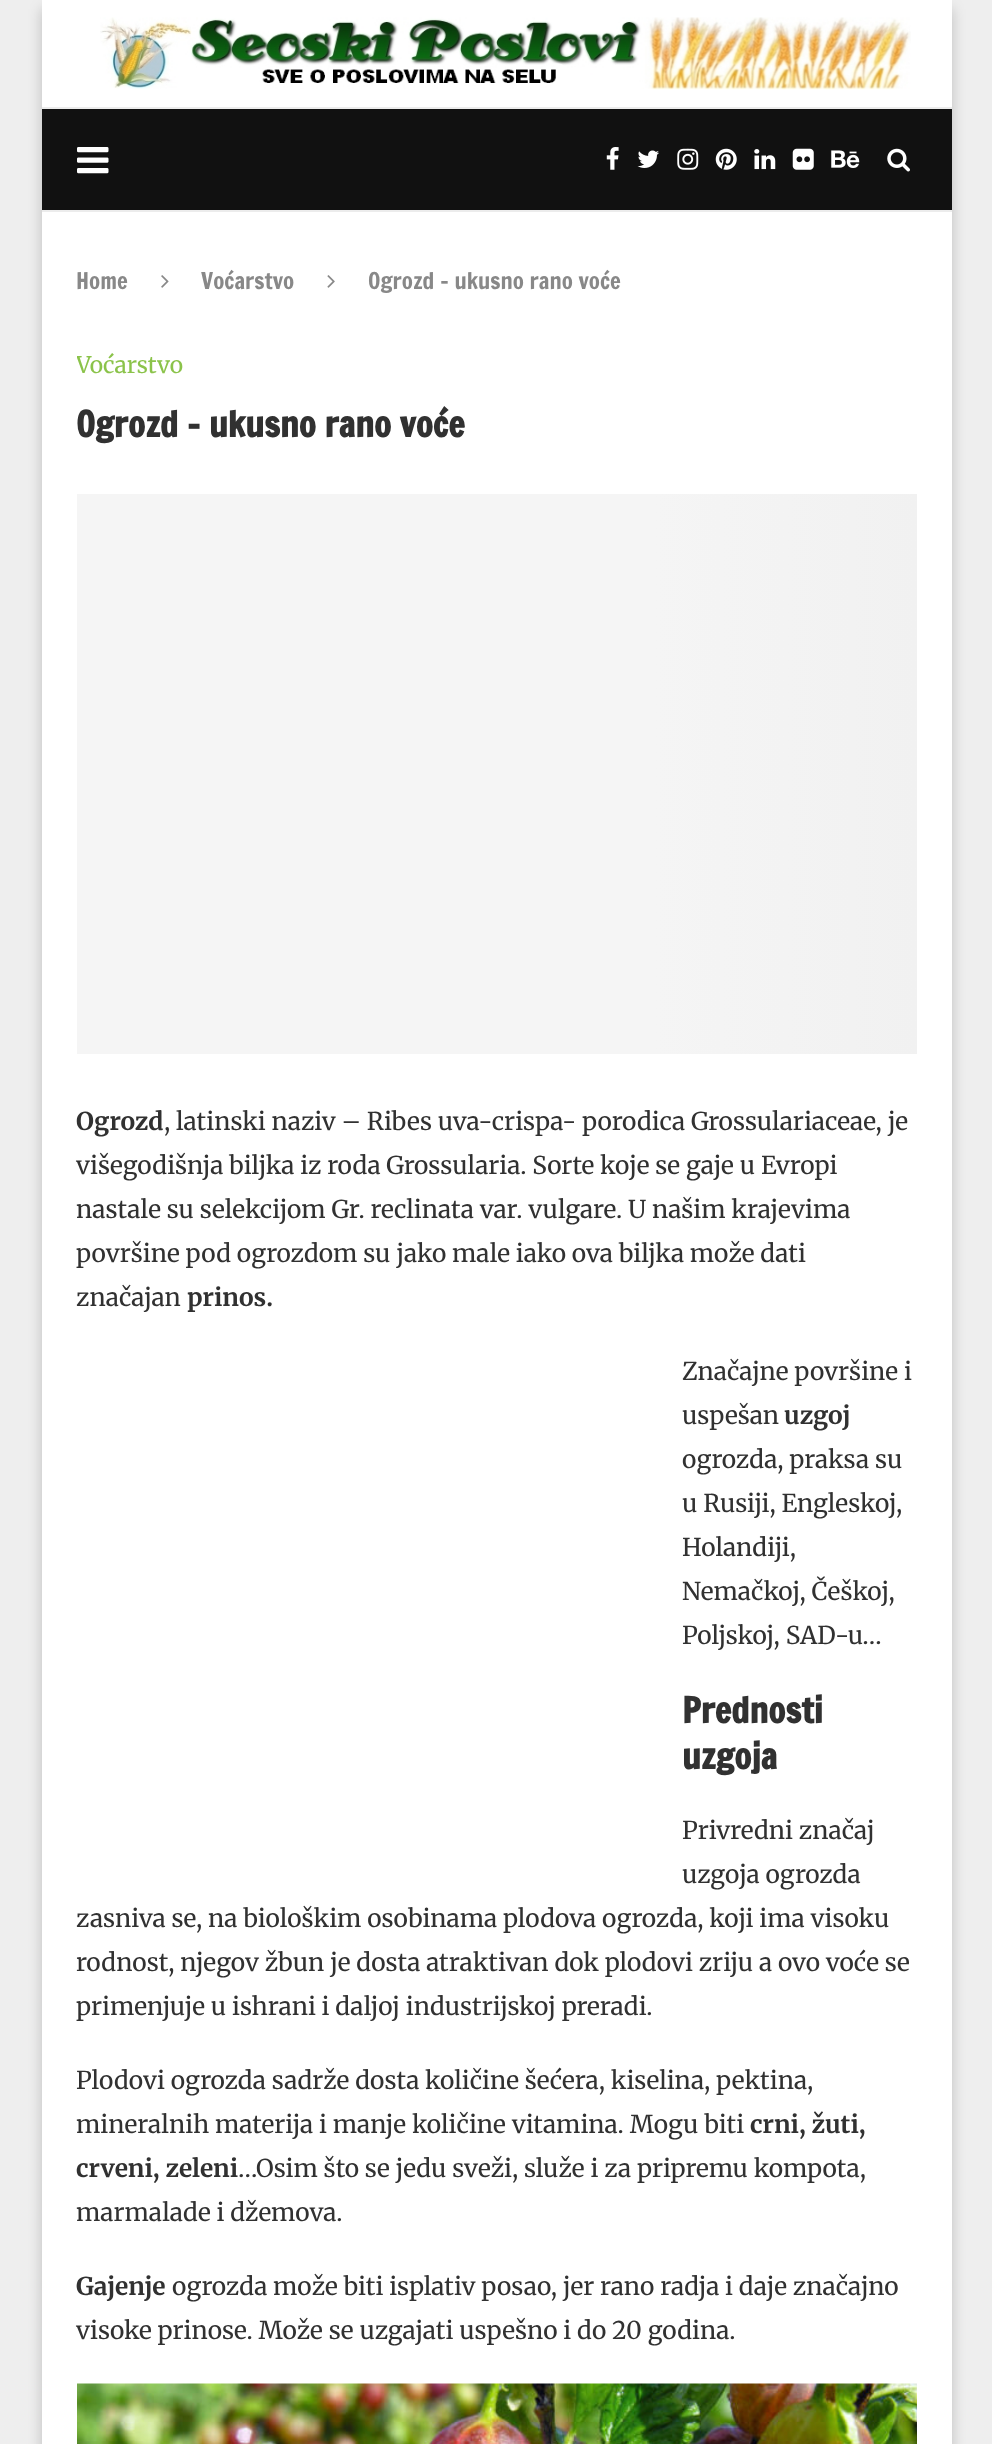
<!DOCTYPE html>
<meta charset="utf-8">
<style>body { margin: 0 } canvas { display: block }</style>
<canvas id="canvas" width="992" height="2444"></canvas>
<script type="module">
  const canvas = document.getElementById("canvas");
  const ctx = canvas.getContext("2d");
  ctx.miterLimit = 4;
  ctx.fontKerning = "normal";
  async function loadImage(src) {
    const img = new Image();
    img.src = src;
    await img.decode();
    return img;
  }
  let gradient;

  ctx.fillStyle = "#eeeeee";
  ctx.fillRect(0, 0, 992, 2444);
  ctx.fillStyle = "rgba(0, 0, 0, 0.2)";
  ctx.filter = "blur(7px)";
  ctx.beginPath();
  ctx.rect(42, 9, 910, 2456);
  ctx.fill();
  ctx.filter = "none";
  ctx.fillStyle = "#ffffff";
  ctx.fillRect(42, 0, 910, 2444);
  ctx.drawImage(await loadImage("img1.png"), 100, 17, 811, 73);
  ctx.fillStyle = "#111111";
  ctx.fillRect(42, 109, 910, 101);
  ctx.fillStyle = "#ececec";
  ctx.fillRect(42, 107, 910, 2);
  ctx.fillRect(42, 210, 910, 2);
  ctx.drawImage(await loadImage("img2.png"), 77, 147, 32, 27);
  ctx.drawImage(await loadImage("img3.png"), 606, 147, 13, 23);
  ctx.drawImage(await loadImage("img4.png"), 637, 150, 22, 18);
  ctx.drawImage(await loadImage("img5.png"), 677, 148, 22, 22);
  ctx.drawImage(await loadImage("img6.png"), 715, 148, 22, 22);
  ctx.drawImage(await loadImage("img7.png"), 754, 149, 22, 21);
  ctx.drawImage(await loadImage("img8.png"), 792, 148, 22, 22);
  ctx.drawImage(await loadImage("img9.png"), 831, 150, 29, 18);
  ctx.drawImage(await loadImage("img10.png"), 887, 148, 23, 24);
  ctx.font = "22.75px Francois One";
  ctx.fillStyle = "#888888";
  ctx.fillText("Home", 76, 289);
  ctx.drawImage(await loadImage("img11.png"), 161, 275, 8, 13);
  ctx.fillText("Voćarstvo", 201, 289);
  ctx.drawImage(await loadImage("img12.png"), 327, 275, 8, 13);
  ctx.fillText("Ogrozd – ukusno rano voće", 368, 289);
  ctx.save();
  ctx.beginPath();
  ctx.rect(77, 352, 840, 35);
  ctx.clip();
  ctx.font = "22.75px Merriweather";
  ctx.fillStyle = "#8bc34a";
  ctx.fillText("Voćarstvo", 76, 373);
  ctx.restore();
  ctx.font = "bold 35px Francois One";
  ctx.fillStyle = "#313131";
  ctx.fillText("Ogrozd – ukusno rano voće", 76, 437);
  gradient = ctx.createLinearGradient(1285, 774, -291, 774);
  gradient.addColorStop(0, "#f5f5f5");
  gradient.addColorStop(0.15, "#efefef");
  gradient.addColorStop(0.4, "#f5f5f5");
  gradient.addColorStop(1, "#f5f5f5");
  ctx.fillStyle = gradient;
  ctx.fillRect(77, 494, 840, 560);
  ctx.font = "bold 24.5px Merriweather";
  ctx.fillStyle = "#313131";
  ctx.fillText("Ogrozd", 76, 1130);
  ctx.font = "24.5px Merriweather";
  ctx.fillText(", latinski naziv – Ribes uva-crispa- porodica Grossulariaceae, je", 164, 1130);
  ctx.fillText("višegodišnja biljka iz roda Grossularia. Sorte koje se gaje u Evropi", 76, 1174);
  ctx.fillText("nastale su selekcijom Gr. reclinata var. vulgare. U našim krajevima", 76, 1218);
  ctx.fillText("površine pod ogrozdom su jako male iako ova biljka može dati", 76, 1262);
  ctx.fillText("značajan", 76, 1306);
  ctx.font = "bold 24.5px Merriweather";
  ctx.fillText("prinos.", 187, 1306);
  ctx.font = "24.5px Merriweather";
  ctx.fillText("Značajne površine i", 682, 1380);
  ctx.fillText("uspešan", 682, 1424);
  ctx.font = "bold 24.5px Merriweather";
  ctx.fillText("uzgoj", 784, 1424);
  ctx.font = "24.5px Merriweather";
  ctx.fillText("ogrozda, praksa su", 682, 1468);
  ctx.fillText("u Rusiji, Engleskoj,", 682, 1512);
  ctx.fillText("Holandiji,", 682, 1556);
  ctx.fillText("Nemačkoj, Češkoj,", 682, 1600);
  ctx.fillText("Poljskoj, SAD-u…", 682, 1644);
  ctx.font = "bold 35px Francois One";
  ctx.fillText("Prednosti", 682, 1723);
  ctx.fillText("uzgoja", 682, 1769);
  ctx.font = "24.5px Merriweather";
  ctx.fillText("Privredni značaj", 682, 1839);
  ctx.fillText("uzgoja ogrozda", 682, 1883);
  ctx.fillText("zasniva se, na biološkim osobinama plodova ogrozda, koji ima visoku", 76, 1927);
  ctx.fillText("rodnost, njegov žbun je dosta atraktivan dok plodovi zriju a ovo voće se", 76, 1971);
  ctx.fillText("primenjuje u ishrani i daljoj industrijskoj preradi.", 76, 2015);
  ctx.fillText("Plodovi ogrozda sadrže dosta količine šećera, kiselina, pektina,", 76, 2089);
  ctx.fillText("mineralnih materija i manje količine vitamina. Mogu biti", 76, 2133);
  ctx.font = "bold 24.5px Merriweather";
  ctx.fillText("crni, žuti,", 750, 2133);
  ctx.fillText("crveni, zeleni", 76, 2177);
  ctx.font = "24.5px Merriweather";
  ctx.fillText("…Osim što se jedu sveži, služe i za pripremu kompota,", 238, 2177);
  ctx.fillText("marmalade i džemova.", 76, 2221);
  ctx.font = "bold 24.5px Merriweather";
  ctx.fillText("Gajenje", 76, 2295);
  ctx.font = "24.5px Merriweather";
  ctx.fillText("ogrozda može biti isplativ posao, jer rano radja i daje značajno", 172, 2295);
  ctx.fillText("visoke prinose. Može se uzgajati uspešno i do 20 godina.", 76, 2339);
  ctx.drawImage(await loadImage("img13.png"), 77, 2383, 840, 61);
</script>
